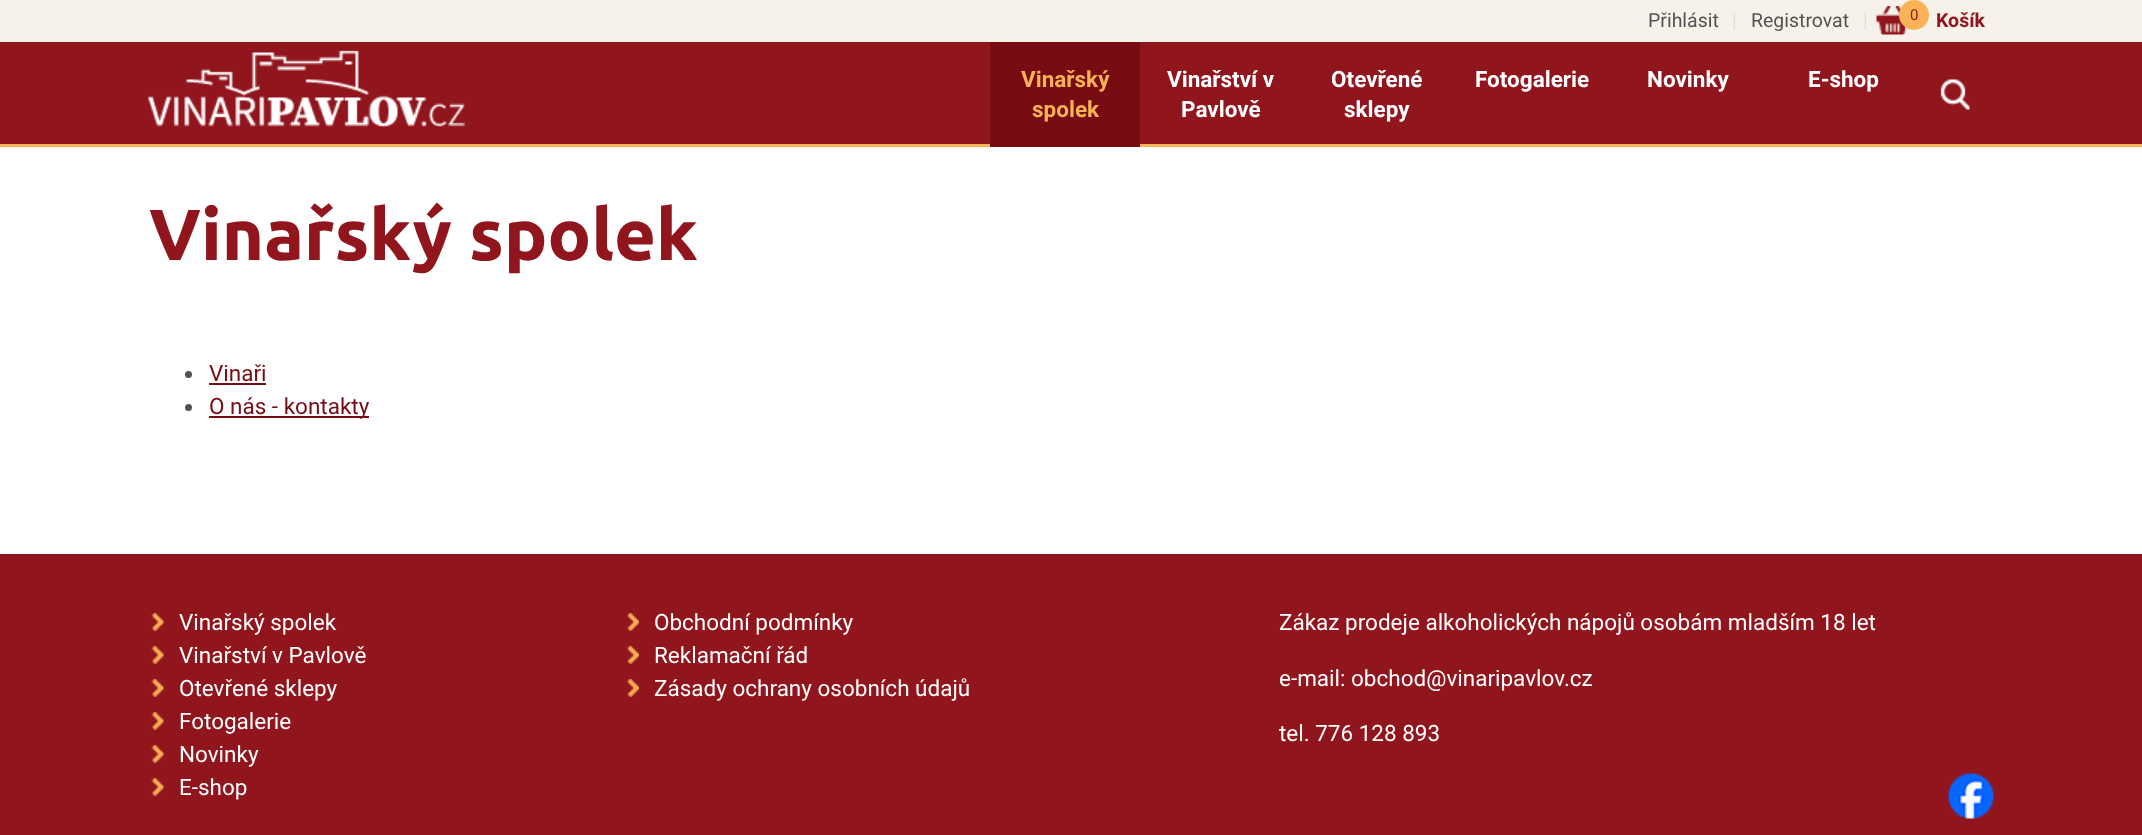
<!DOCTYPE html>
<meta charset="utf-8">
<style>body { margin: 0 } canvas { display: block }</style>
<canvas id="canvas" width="2142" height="835"></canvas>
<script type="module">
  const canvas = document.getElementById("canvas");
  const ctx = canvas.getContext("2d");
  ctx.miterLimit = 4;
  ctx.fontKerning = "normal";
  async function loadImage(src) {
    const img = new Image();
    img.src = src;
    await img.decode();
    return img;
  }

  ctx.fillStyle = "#ffffff";
  ctx.fillRect(0, 0, 2142, 835);
  ctx.fillStyle = "#f6f2ea";
  ctx.fillRect(0, 0, 2142, 42);
  ctx.font = "19.5px Roboto";
  ctx.fillStyle = "#535353";
  ctx.fillText("Přihlásit", 1648, 27);
  ctx.fillStyle = "#dddddd";
  ctx.fillText("|", 1732, 27);
  ctx.fillStyle = "#535353";
  ctx.fillText("Registrovat", 1751, 27);
  ctx.fillStyle = "#dddddd";
  ctx.fillText("|", 1863, 27);
  ctx.drawImage(await loadImage("img1.png"), 1876, 6, 31, 29);
  ctx.fillStyle = "#f9b256";
  ctx.beginPath();
  ctx.arc(1914, 15, 15, 0, Math.PI * 2);
  ctx.fill();
  ctx.font = "15px Roboto";
  ctx.fillStyle = "#91151d";
  ctx.fillText("0", 1910, 20);
  ctx.font = "bold 19.5px Roboto";
  ctx.fillText("Košík", 1936, 27);
  ctx.fillRect(0, 42, 2142, 102);
  ctx.fillStyle = "#f9b256";
  ctx.fillRect(0, 144, 2142, 3);
  ctx.drawImage(await loadImage("img2.png"), 148, 50, 317, 78);
  ctx.fillStyle = "#770c13";
  ctx.fillRect(990, 42, 150, 105);
  ctx.font = "bold 22.5px Roboto";
  ctx.fillStyle = "#f9b256";
  ctx.fillText("Vinařský", 1021, 87);
  ctx.fillText("spolek", 1032, 117);
  ctx.fillStyle = "#ffffff";
  ctx.fillText("Vinařství v", 1167, 87);
  ctx.fillText("Pavlově", 1181, 117);
  ctx.fillText("Otevřené", 1331, 87);
  ctx.fillText("sklepy", 1344, 117);
  ctx.fillText("Fotogalerie", 1475, 87);
  ctx.fillText("Novinky", 1647, 87);
  ctx.fillText("E-shop", 1808, 87);
  ctx.drawImage(await loadImage("img3.png"), 1940, 79, 30, 31);
  ctx.font = "bold 72px Ubuntu";
  ctx.fillStyle = "#91151d";
  ctx.fillText("Vinařský spolek", 149, 260);
  ctx.fillStyle = "#535353";
  ctx.beginPath();
  ctx.arc(188.5, 374.5, 3.5, 0, Math.PI * 2);
  ctx.fill();
  ctx.font = "22.5px Roboto";
  ctx.fillStyle = "#770c13";
  ctx.fillText("Vinaři", 209, 381);
  ctx.fillRect(209, 383, 57, 2);
  ctx.fillStyle = "#535353";
  ctx.beginPath();
  ctx.arc(188.5, 407.5, 3.5, 0, Math.PI * 2);
  ctx.fill();
  ctx.fillStyle = "#770c13";
  ctx.fillRect(209, 416, 160, 2);
  ctx.fillText("O nás - kontakty", 209, 414);
  ctx.fillStyle = "#91151d";
  ctx.fillRect(0, 554, 2142, 281);
  ctx.drawImage(await loadImage("img4.png"), 151, 613, 13, 18);
  ctx.fillStyle = "#ffffff";
  ctx.fillText("Vinařský spolek", 179, 630);
  ctx.drawImage(await loadImage("img4.png"), 151, 646, 13, 18);
  ctx.fillText("Vinařství v Pavlově", 179, 663);
  ctx.drawImage(await loadImage("img4.png"), 151, 679, 13, 18);
  ctx.fillText("Otevřené sklepy", 179, 696);
  ctx.drawImage(await loadImage("img4.png"), 151, 712, 13, 18);
  ctx.fillText("Fotogalerie", 179, 729);
  ctx.drawImage(await loadImage("img4.png"), 151, 745, 13, 18);
  ctx.fillText("Novinky", 179, 762);
  ctx.drawImage(await loadImage("img4.png"), 151, 778, 13, 18);
  ctx.fillText("E-shop", 179, 795);
  ctx.drawImage(await loadImage("img5.png"), 627, 613, 12, 18);
  ctx.fillText("Obchodní podmínky", 654, 630);
  ctx.drawImage(await loadImage("img5.png"), 627, 646, 12, 18);
  ctx.fillText("Reklamační řád", 654, 663);
  ctx.drawImage(await loadImage("img5.png"), 627, 679, 12, 18);
  ctx.fillText("Zásady ochrany osobních údajů", 654, 696);
  ctx.fillText("Zákaz prodeje alkoholických nápojů osobám mladším 18 let", 1279, 630);
  ctx.fillText("e-mail: obchod@vinaripavlov.cz", 1279, 686);
  ctx.fillText("tel. 776 128 893", 1279, 741);
  ctx.drawImage(await loadImage("img6.png"), 1948, 773, 46, 46);
</script>
